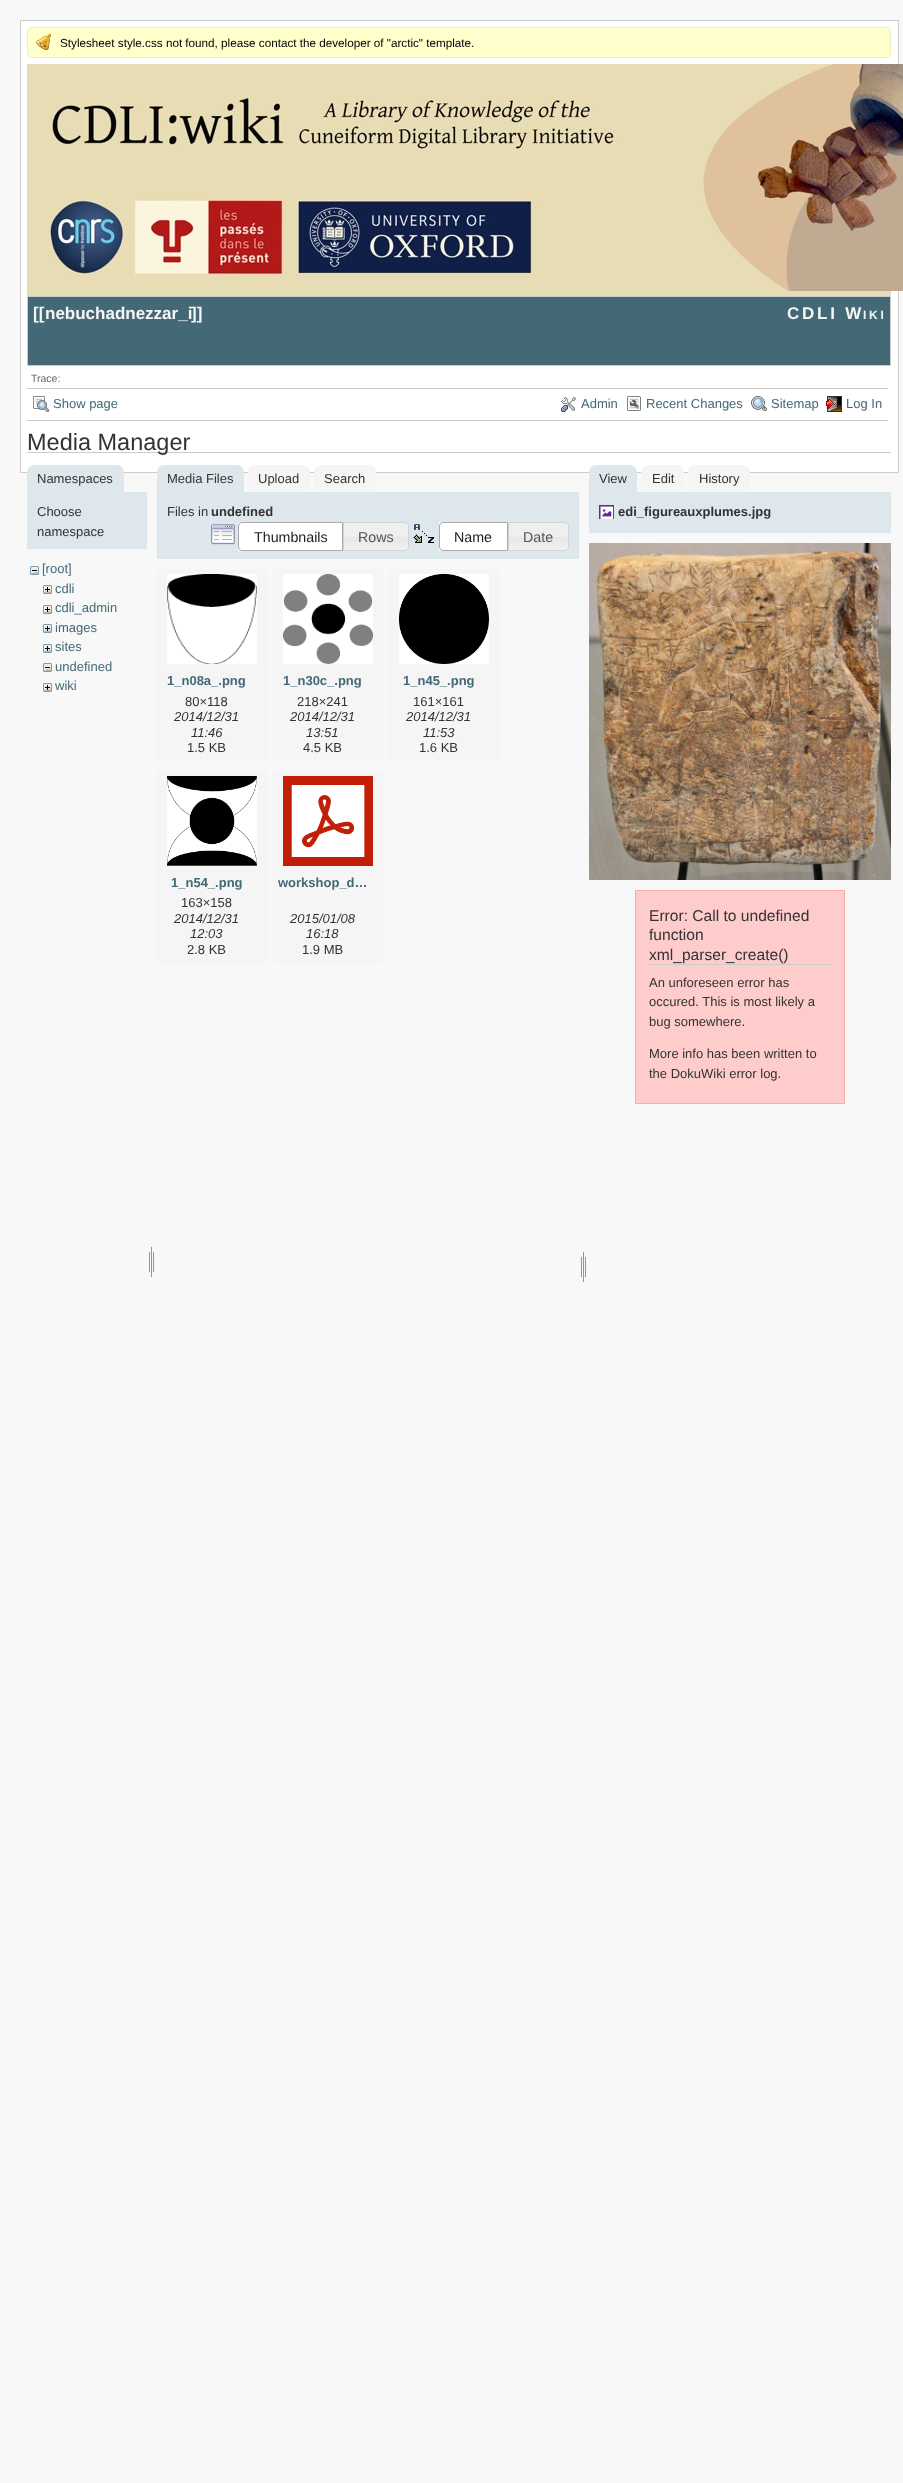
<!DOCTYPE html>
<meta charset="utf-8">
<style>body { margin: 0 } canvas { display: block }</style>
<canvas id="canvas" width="903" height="2483"></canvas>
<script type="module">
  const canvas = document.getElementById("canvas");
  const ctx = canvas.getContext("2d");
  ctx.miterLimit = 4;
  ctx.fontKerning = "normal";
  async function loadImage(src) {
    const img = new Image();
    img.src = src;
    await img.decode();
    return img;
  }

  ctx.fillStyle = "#f8f8f8";
  ctx.fillRect(0, 0, 903, 2483);
  ctx.fillStyle = "#ffffff";
  ctx.beginPath();
  ctx.rect(20.5, 20.5, 878, 452);
  ctx.fill();
  ctx.strokeStyle = "#cccccc";
  ctx.stroke();
  ctx.fillStyle = "#ffffcc";
  ctx.beginPath();
  ctx.roundRect(27, 27, 864, 31, 5);
  ctx.fill();
  ctx.drawImage(await loadImage("img1.png"), 36, 34, 15, 16);
  ctx.beginPath();
  ctx.roundRect(27.5, 27.5, 863, 30, 4.5);
  ctx.strokeStyle = "#eeeebb";
  ctx.stroke();
  ctx.font = "11.7px Liberation Sans";
  ctx.fillStyle = "#000000";
  ctx.fillText("Stylesheet style.css not found, please contact the developer of \"arctic\" template.", 60, 47);
  ctx.fillStyle = "#e6dcb8";
  ctx.fillRect(27, 64, 864, 232);
  ctx.drawImage(await loadImage("img2.png"), 42, 64, 861, 227);
  ctx.fillStyle = "#436976";
  ctx.beginPath();
  ctx.rect(27.5, 296.5, 863, 69);
  ctx.fill();
  ctx.strokeStyle = "#cccccc";
  ctx.stroke();
  ctx.font = "bold 17px Liberation Sans";
  ctx.fillStyle = "#f5f5f5";
  ctx.fillText("[[", 33, 319);
  ctx.fillText("nebuchadnezzar_i", 45, 319);
  ctx.fillText("]]", 191, 319);
  ctx.letterSpacing = "2.75px";
  ctx.fillText("CDLI W", 787, 319);
  ctx.font = "bold 12px Liberation Sans";
  ctx.fillText("IKI", 863, 319);
  ctx.letterSpacing = "0px";
  ctx.font = "10.5px Liberation Sans";
  ctx.fillStyle = "#666666";
  ctx.fillText("Trace:", 31, 382);
  ctx.fillStyle = "#cccccc";
  ctx.fillRect(27, 388, 861, 1);
  ctx.fillRect(27, 420, 861, 1);
  ctx.drawImage(await loadImage("img3.png"), 33, 396, 16, 16);
  ctx.font = "13px Liberation Sans";
  ctx.fillStyle = "#436976";
  ctx.fillText("Show page", 53, 408);
  ctx.drawImage(await loadImage("img4.png"), 561, 397, 15, 15);
  ctx.fillText("Admin", 581, 408);
  ctx.drawImage(await loadImage("img5.png"), 627, 396, 14, 15);
  ctx.fillText("Recent Changes", 646, 408);
  ctx.drawImage(await loadImage("img6.png"), 751, 396, 16, 15);
  ctx.fillText("Sitemap", 771, 408);
  ctx.drawImage(await loadImage("img7.png"), 826, 396, 16, 16);
  ctx.fillText("Log In", 846, 408);
  ctx.fillStyle = "#cccccc";
  ctx.fillRect(27, 452, 864, 1);
  ctx.font = "23.5px Liberation Sans";
  ctx.fillStyle = "#333333";
  ctx.fillText("Media Manager", 27, 450);
  ctx.fillStyle = "#dee7ec";
  ctx.beginPath();
  ctx.roundRect(27, 465, 97, 27, [7, 7, 0, 0]);
  ctx.fill();
  ctx.font = "13px Liberation Sans";
  ctx.fillStyle = "#333333";
  ctx.fillText("Namespaces", 37, 483);
  ctx.fillStyle = "#dee7ec";
  ctx.fillRect(27, 492, 120, 57);
  ctx.fillStyle = "#333333";
  ctx.fillText("Choose", 37, 516);
  ctx.fillText("namespace", 37, 536);
  ctx.drawImage(await loadImage("img8.png"), 30, 566, 9, 9);
  ctx.fillStyle = "#436976";
  ctx.fillText("[root]", 42, 573);
  ctx.drawImage(await loadImage("img9.png"), 43, 585, 9, 9);
  ctx.fillText("cdli", 55, 593);
  ctx.drawImage(await loadImage("img9.png"), 43, 605, 9, 9);
  ctx.fillText("cdli_admin", 55, 612);
  ctx.drawImage(await loadImage("img9.png"), 43, 624, 9, 9);
  ctx.fillText("images", 55, 632);
  ctx.drawImage(await loadImage("img9.png"), 43, 644, 9, 9);
  ctx.fillText("sites", 55, 651);
  ctx.drawImage(await loadImage("img8.png"), 43, 663, 9, 9);
  ctx.fillText("undefined", 55, 671);
  ctx.drawImage(await loadImage("img9.png"), 43, 683, 9, 9);
  ctx.fillText("wiki", 55, 690);
  ctx.drawImage(await loadImage("img10.png"), 149, 1246, 5, 31);
  ctx.fillStyle = "#dee7ec";
  ctx.beginPath();
  ctx.roundRect(157, 465, 87, 27, [7, 7, 0, 0]);
  ctx.fill();
  ctx.fillStyle = "#333333";
  ctx.fillText("Media Files", 167, 483);
  ctx.fillStyle = "#f5f5f5";
  ctx.beginPath();
  ctx.roundRect(248, 465, 62, 27, [7, 7, 0, 0]);
  ctx.fill();
  ctx.fillStyle = "#333333";
  ctx.fillText("Upload", 258, 483);
  ctx.fillStyle = "#f5f5f5";
  ctx.beginPath();
  ctx.roundRect(314, 465, 62, 27, [7, 7, 0, 0]);
  ctx.fill();
  ctx.fillStyle = "#333333";
  ctx.fillText("Search", 324, 483);
  ctx.fillStyle = "#dee7ec";
  ctx.fillRect(157, 492, 422, 67);
  ctx.fillStyle = "#333333";
  ctx.fillText("Files in", 167, 516);
  ctx.font = "bold 13px Liberation Sans";
  ctx.fillText("undefined", 211, 516);
  ctx.drawImage(await loadImage("img11.png"), 211, 524, 24, 21);
  ctx.fillStyle = "#ffffff";
  ctx.fillRect(238, 522, 104, 29);
  ctx.beginPath();
  ctx.roundRect(238.5, 522.5, 104, 28, [3.5, 0, 0, 3.5]);
  ctx.strokeStyle = "#aaaaaa";
  ctx.stroke();
  ctx.font = "14.25px Liberation Sans";
  ctx.fillStyle = "#212121";
  ctx.fillText("Thumbnails", 254, 542);
  ctx.drawImage(await loadImage("img12.png"), 344, 522, 65, 29);
  ctx.beginPath();
  ctx.roundRect(343.5, 522.5, 65, 28, [0, 3.5, 3.5, 0]);
  ctx.strokeStyle = "#d3d3d3";
  ctx.stroke();
  ctx.fillStyle = "#555555";
  ctx.fillText("Rows", 358, 542);
  ctx.drawImage(await loadImage("img13.png"), 413, 524, 21, 19);
  ctx.fillStyle = "#ffffff";
  ctx.fillRect(439, 522, 68, 29);
  ctx.beginPath();
  ctx.roundRect(439.5, 522.5, 68, 28, [3.5, 0, 0, 3.5]);
  ctx.strokeStyle = "#aaaaaa";
  ctx.stroke();
  ctx.fillStyle = "#212121";
  ctx.fillText("Name", 454, 542);
  ctx.drawImage(await loadImage("img14.png"), 509, 522, 60, 29);
  ctx.beginPath();
  ctx.roundRect(508.5, 522.5, 60, 28, [0, 3.5, 3.5, 0]);
  ctx.strokeStyle = "#d3d3d3";
  ctx.stroke();
  ctx.fillStyle = "#555555";
  ctx.fillText("Date", 523, 542);
  ctx.fillStyle = "#f5f5f5";
  ctx.fillRect(157, 569, 110, 192);
  ctx.drawImage(await loadImage("img15.png"), 167, 574, 90, 90);
  ctx.font = "bold 13px Liberation Sans";
  ctx.fillStyle = "#436976";
  ctx.fillText("1_n08a_.png", 167, 685);
  ctx.font = "13px Liberation Sans";
  ctx.fillStyle = "#333333";
  ctx.fillText("80×118", 185, 706);
  ctx.font = "italic 13px Liberation Sans";
  ctx.fillText("2014/12/31", 174, 721);
  ctx.fillText("11:46", 191, 737);
  ctx.font = "13px Liberation Sans";
  ctx.fillText("1.5 KB", 187, 752);
  ctx.fillStyle = "#f5f5f5";
  ctx.fillRect(273, 569, 110, 192);
  ctx.drawImage(await loadImage("img16.png"), 283, 574, 90, 90);
  ctx.font = "bold 13px Liberation Sans";
  ctx.fillStyle = "#436976";
  ctx.fillText("1_n30c_.png", 283, 685);
  ctx.font = "13px Liberation Sans";
  ctx.fillStyle = "#333333";
  ctx.fillText("218×241", 297, 706);
  ctx.font = "italic 13px Liberation Sans";
  ctx.fillText("2014/12/31", 290, 721);
  ctx.fillText("13:51", 306, 737);
  ctx.font = "13px Liberation Sans";
  ctx.fillText("4.5 KB", 303, 752);
  ctx.fillStyle = "#f5f5f5";
  ctx.fillRect(389, 569, 110, 192);
  ctx.drawImage(await loadImage("img17.png"), 399, 574, 90, 90);
  ctx.font = "bold 13px Liberation Sans";
  ctx.fillStyle = "#436976";
  ctx.fillText("1_n45_.png", 403, 685);
  ctx.font = "13px Liberation Sans";
  ctx.fillStyle = "#333333";
  ctx.fillText("161×161", 413, 706);
  ctx.font = "italic 13px Liberation Sans";
  ctx.fillText("2014/12/31", 406, 721);
  ctx.fillText("11:53", 423, 737);
  ctx.font = "13px Liberation Sans";
  ctx.fillText("1.6 KB", 419, 752);
  ctx.fillStyle = "#f5f5f5";
  ctx.fillRect(157, 771, 110, 192);
  ctx.drawImage(await loadImage("img18.png"), 167, 776, 90, 90);
  ctx.font = "bold 13px Liberation Sans";
  ctx.fillStyle = "#436976";
  ctx.fillText("1_n54_.png", 171, 887);
  ctx.font = "13px Liberation Sans";
  ctx.fillStyle = "#333333";
  ctx.fillText("163×158", 181, 907);
  ctx.font = "italic 13px Liberation Sans";
  ctx.fillText("2014/12/31", 174, 923);
  ctx.fillText("12:03", 190, 938);
  ctx.font = "13px Liberation Sans";
  ctx.fillText("2.8 KB", 187, 954);
  ctx.fillStyle = "#f5f5f5";
  ctx.fillRect(273, 771, 110, 192);
  ctx.drawImage(await loadImage("img19.png"), 283, 776, 90, 90);
  ctx.font = "bold 13px Liberation Sans";
  ctx.fillStyle = "#436976";
  ctx.fillText("workshop_d…", 278, 887);
  ctx.font = "italic 13px Liberation Sans";
  ctx.fillStyle = "#333333";
  ctx.fillText("2015/01/08", 290, 923);
  ctx.fillText("16:18", 306, 938);
  ctx.font = "13px Liberation Sans";
  ctx.fillText("1.9 MB", 302, 954);
  ctx.drawImage(await loadImage("img10.png"), 581, 1251, 5, 31);
  ctx.fillStyle = "#dee7ec";
  ctx.beginPath();
  ctx.roundRect(589, 465, 48, 27, [7, 7, 0, 0]);
  ctx.fill();
  ctx.fillStyle = "#333333";
  ctx.fillText("View", 599, 483);
  ctx.fillStyle = "#f5f5f5";
  ctx.beginPath();
  ctx.roundRect(641, 465, 43, 27, [7, 7, 0, 0]);
  ctx.fill();
  ctx.fillStyle = "#333333";
  ctx.fillText("Edit", 652, 483);
  ctx.fillStyle = "#f5f5f5";
  ctx.beginPath();
  ctx.roundRect(688, 465, 62, 27, [7, 7, 0, 0]);
  ctx.fill();
  ctx.fillStyle = "#333333";
  ctx.fillText("History", 699, 483);
  ctx.fillStyle = "#dee7ec";
  ctx.fillRect(589, 492, 302, 41);
  ctx.drawImage(await loadImage("img20.png"), 599, 505, 15, 14);
  ctx.font = "bold 13px Liberation Sans";
  ctx.fillStyle = "#333333";
  ctx.fillText("edi_figureauxplumes.jpg", 618, 516);
  ctx.drawImage(await loadImage("img21.png"), 589, 543, 302, 337);
  ctx.fillStyle = "#ffcccc";
  ctx.beginPath();
  ctx.rect(635.5, 890.5, 209, 213);
  ctx.fill();
  ctx.strokeStyle = "#ffaaaa";
  ctx.stroke();
  ctx.fillStyle = "#cccccc";
  ctx.fillRect(649, 964, 182, 1);
  ctx.font = "15.6px Liberation Sans";
  ctx.fillStyle = "#333333";
  ctx.fillText("Error: Call to undefined", 649, 921);
  ctx.fillText("function", 649, 940);
  ctx.fillText("xml_parser_create()", 649, 960);
  ctx.font = "13px Liberation Sans";
  ctx.fillText("An unforeseen error has", 649, 987);
  ctx.fillText("occured. This is most likely a", 649, 1006);
  ctx.fillText("bug somewhere.", 649, 1026);
  ctx.fillText("More info has been written to", 649, 1058);
  ctx.fillText("the DokuWiki error log.", 649, 1078);
</script>
